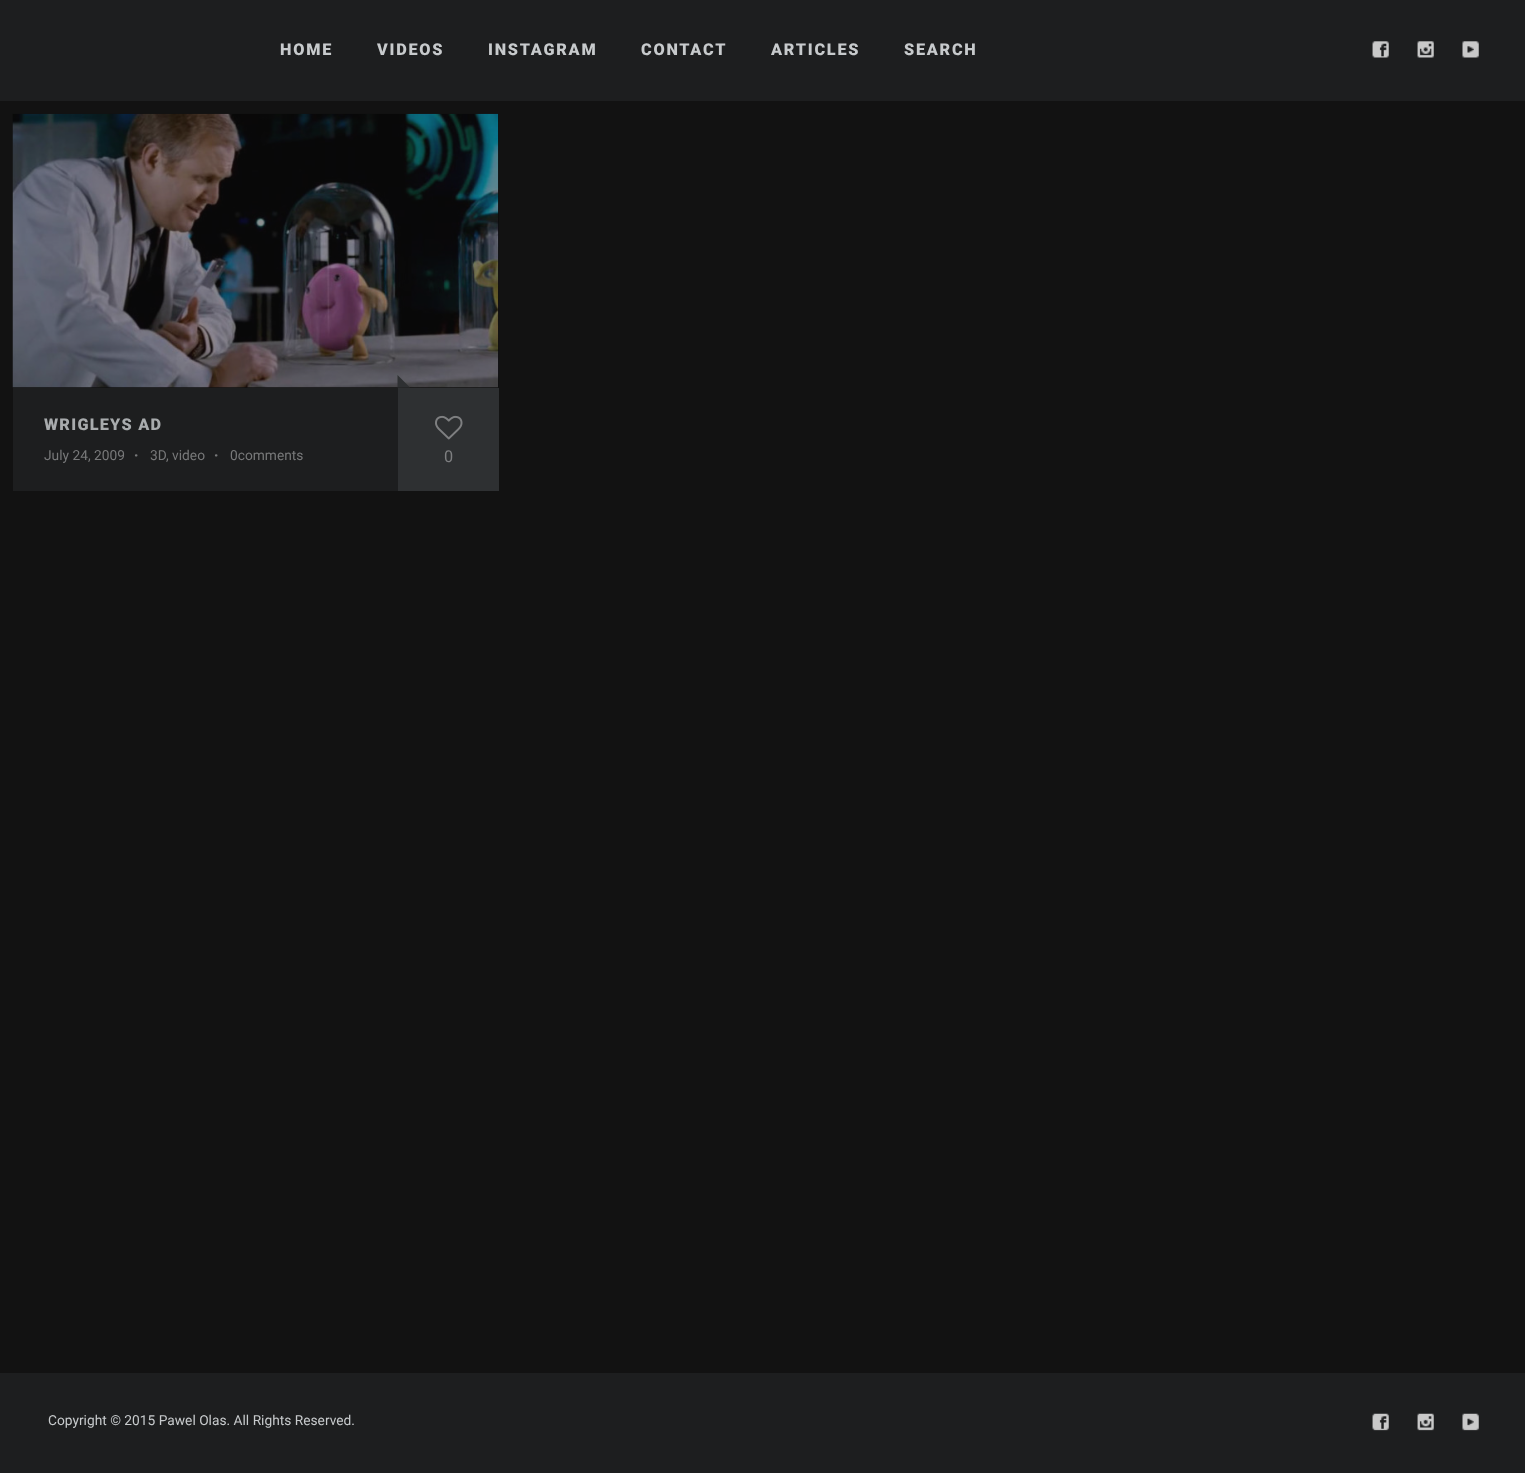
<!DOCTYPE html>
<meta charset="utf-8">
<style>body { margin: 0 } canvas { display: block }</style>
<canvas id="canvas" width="1525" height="1473"></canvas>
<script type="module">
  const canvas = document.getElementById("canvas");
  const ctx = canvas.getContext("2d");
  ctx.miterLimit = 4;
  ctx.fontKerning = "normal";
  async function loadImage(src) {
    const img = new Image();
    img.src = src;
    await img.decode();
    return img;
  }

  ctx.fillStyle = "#121212";
  ctx.fillRect(0, 0, 1525, 1473);
  ctx.fillStyle = "#1d1e1f";
  ctx.fillRect(0, 0, 1525, 101);
  ctx.letterSpacing = "1.75px";
  ctx.font = "900 16.25px Roboto";
  ctx.fillStyle = "#c7cacc";
  ctx.fillText("HOME", 280, 55);
  ctx.fillText("VIDEOS", 377, 55);
  ctx.fillText("INSTAGRAM", 488, 55);
  ctx.fillText("CONTACT", 641, 55);
  ctx.fillText("ARTICLES", 771, 55);
  ctx.fillText("SEARCH", 904, 55);
  ctx.drawImage(await loadImage("img1.png"), 1372, 41, 17, 17);
  ctx.drawImage(await loadImage("img2.png"), 1417, 41, 17, 17);
  ctx.drawImage(await loadImage("img3.png"), 1462, 41, 17, 17);
  ctx.drawImage(await loadImage("img4.png"), 12, 113, 487, 275);
  ctx.fillStyle = "#1d1e1f";
  ctx.fillRect(13, 388, 385, 103);
  ctx.letterSpacing = "1.25px";
  ctx.fillStyle = "#a8abad";
  ctx.fillText("WRIGLEYS AD", 44, 430);
  ctx.letterSpacing = "0px";
  ctx.font = "13.75px Roboto";
  ctx.fillStyle = "#78797a";
  ctx.fillText("July 24, 2009", 44, 460);
  ctx.font = "900 13.75px Roboto";
  ctx.fillText("·", 134, 460);
  ctx.font = "13.75px Roboto";
  ctx.fillText("3D", 150, 460);
  ctx.fillText(", video", 166, 460);
  ctx.font = "900 13.75px Roboto";
  ctx.fillText("·", 214, 460);
  ctx.font = "13.75px Roboto";
  ctx.fillText("0comments", 230, 460);
  ctx.fillStyle = "#2e3032";
  ctx.fillRect(398, 388, 101, 103);
  ctx.beginPath();
  ctx.moveTo(397.5, 387.5);
  ctx.lineTo(397.5, 375);
  ctx.lineTo(410, 387.5);
  ctx.closePath();
  ctx.fill();
  ctx.drawImage(await loadImage("img5.png"), 435, 415, 28, 25);
  ctx.font = "16.25px Roboto";
  ctx.fillStyle = "#7e7f81";
  ctx.fillText("0", 444, 462);
  ctx.fillStyle = "#1d1e1f";
  ctx.fillRect(0, 1373, 1525, 100);
  ctx.font = "13.75px Roboto";
  ctx.fillStyle = "#c7cacc";
  ctx.fillText("Copyright © 2015 Pawel Olas. All Rights Reserved.", 48, 1425);
  ctx.drawImage(await loadImage("img6.png"), 1372, 1413, 17, 18);
  ctx.drawImage(await loadImage("img7.png"), 1417, 1413, 17, 18);
  ctx.drawImage(await loadImage("img8.png"), 1462, 1413, 17, 18);
</script>
